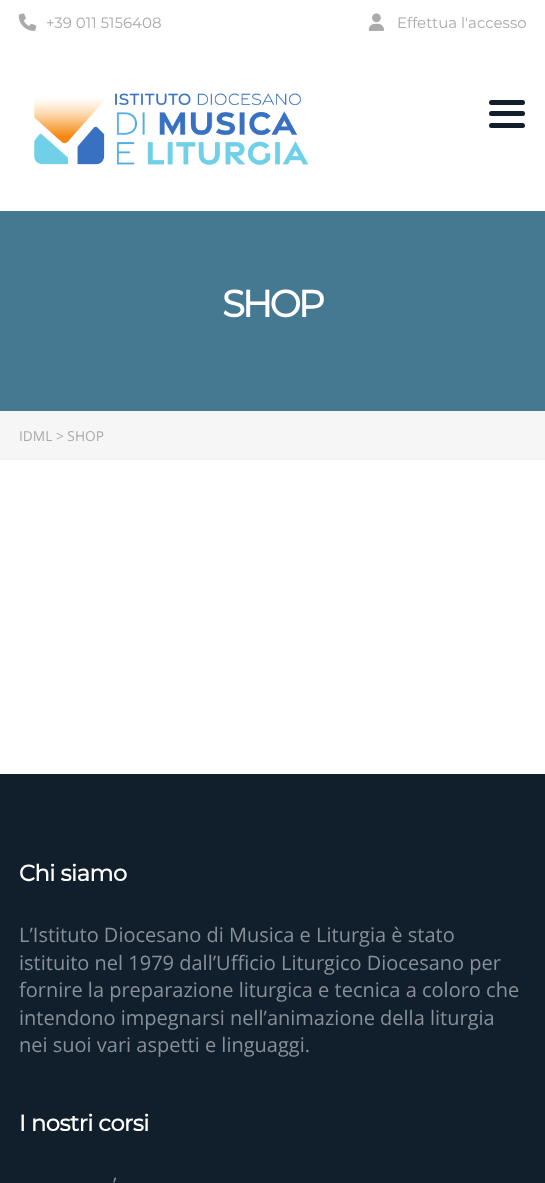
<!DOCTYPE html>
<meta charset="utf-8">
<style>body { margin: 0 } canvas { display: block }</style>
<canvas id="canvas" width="545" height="1183"></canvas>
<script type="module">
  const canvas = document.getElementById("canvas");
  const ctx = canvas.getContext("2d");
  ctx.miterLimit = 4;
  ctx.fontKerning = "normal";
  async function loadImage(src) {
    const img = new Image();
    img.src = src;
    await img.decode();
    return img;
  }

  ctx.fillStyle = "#ffffff";
  ctx.fillRect(0, 0, 545, 1183);
  ctx.drawImage(await loadImage("img1.png"), 18, 13, 19, 18);
  ctx.font = "100 15px Montserrat";
  ctx.fillStyle = "#aaaaaa";
  ctx.fillText("+39 011 5156408", 46, 28);
  ctx.drawImage(await loadImage("img2.png"), 368, 13, 16, 18);
  ctx.fillText("Effettua l'accesso", 397, 28);
  ctx.drawImage(await loadImage("img3.png"), 34, 93, 275, 73);
  ctx.fillStyle = "#111f2d";
  ctx.beginPath();
  ctx.roundRect(489, 100, 36, 5, 2.5);
  ctx.fill();
  ctx.beginPath();
  ctx.roundRect(489, 111, 36, 5, 2.5);
  ctx.fill();
  ctx.beginPath();
  ctx.roundRect(489, 123, 36, 5, 2.5);
  ctx.fill();
  ctx.fillStyle = "#457992";
  ctx.fillRect(0, 211, 545, 200);
  ctx.letterSpacing = "-3px";
  ctx.font = "bold 37.5px Montserrat";
  ctx.fillStyle = "#ffffff";
  ctx.fillText("SHOP", 222, 317);
  ctx.fillStyle = "#f6f6f6";
  ctx.fillRect(0, 411, 545, 48);
  ctx.fillStyle = "#f0f2f5";
  ctx.fillRect(0, 459, 545, 1);
  ctx.letterSpacing = "0px";
  ctx.font = "13.75px Open Sans";
  ctx.fillStyle = "#aaaaaa";
  ctx.fillText("IDML > SHOP", 19, 441);
  ctx.fillStyle = "#111f2d";
  ctx.fillRect(0, 774, 545, 409);
  ctx.letterSpacing = "-0.4px";
  ctx.font = "bold 22.5px Montserrat";
  ctx.fillStyle = "#ffffff";
  ctx.fillText("Chi siamo", 19, 881);
  ctx.letterSpacing = "0px";
  ctx.font = "20px Open Sans";
  ctx.fillStyle = "#888f96";
  ctx.fillText("L’Istituto Diocesano di Musica e Liturgia è stato", 19, 942);
  ctx.fillText("istituito nel 1979 dall’Ufficio Liturgico Diocesano per", 19, 970);
  ctx.fillText("fornire la preparazione liturgica e tecnica a coloro che", 19, 997);
  ctx.fillText("intendono impegnarsi nell’animazione della liturgia", 19, 1025);
  ctx.fillText("nei suoi vari aspetti e linguaggi.", 19, 1052);
  ctx.letterSpacing = "-0.4px";
  ctx.font = "bold 22.5px Montserrat";
  ctx.fillStyle = "#ffffff";
  ctx.fillText("I nostri corsi", 19, 1131);
  ctx.letterSpacing = "0px";
  ctx.font = "20px Open Sans";
  ctx.fillStyle = "#888f96";
  ctx.fillText("’", 113, 1192);
</script>
